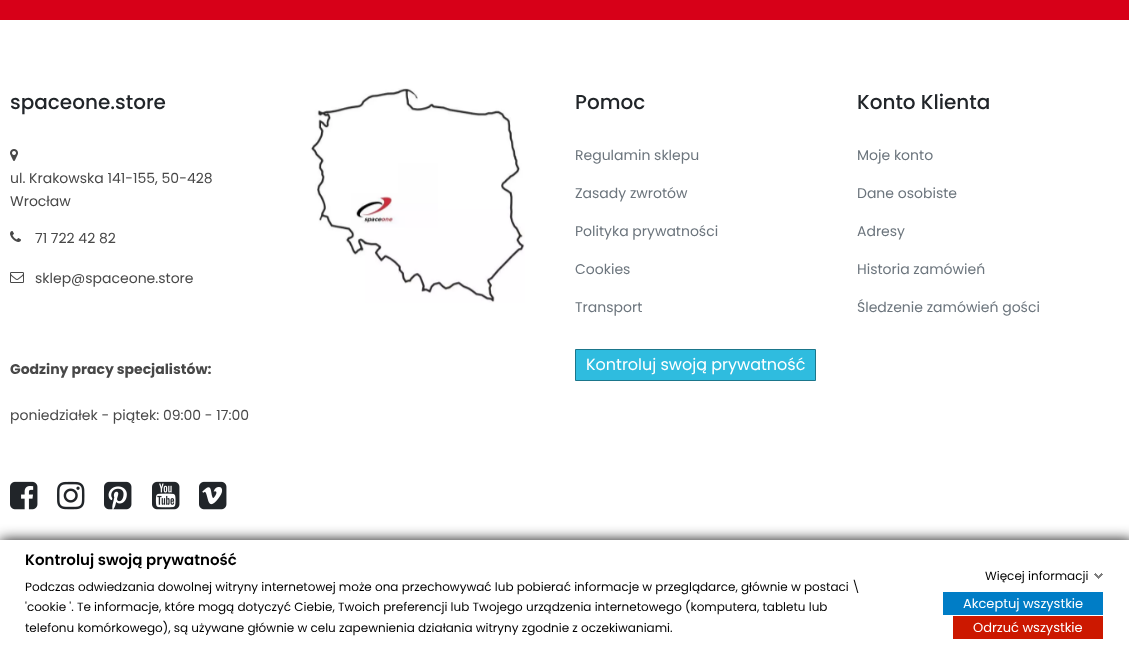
<!DOCTYPE html>
<meta charset="utf-8">
<style>body { margin: 0 } canvas { display: block }</style>
<canvas id="canvas" width="1129" height="653"></canvas>
<script type="module">
  const canvas = document.getElementById("canvas");
  const ctx = canvas.getContext("2d");
  ctx.miterLimit = 4;
  ctx.fontKerning = "normal";
  async function loadImage(src) {
    const img = new Image();
    img.src = src;
    await img.decode();
    return img;
  }

  ctx.fillStyle = "#ffffff";
  ctx.fillRect(0, 0, 1129, 653);
  ctx.fillStyle = "#d70018";
  ctx.fillRect(0, 0, 1129, 20);
  ctx.font = "500 20px Poppins";
  ctx.fillStyle = "#212529";
  ctx.fillText("spaceone.store", 10, 109);
  ctx.drawImage(await loadImage("img1.png"), 10, 149, 8, 12);
  ctx.font = "14px Poppins";
  ctx.fillStyle = "#484848";
  ctx.fillText("ul. Krakowska 141-155, 50-428", 10, 183);
  ctx.fillText("Wrocław", 10, 206);
  ctx.drawImage(await loadImage("img2.png"), 10, 231, 11, 11);
  ctx.fillText("71 722 42 82", 35, 243);
  ctx.drawImage(await loadImage("img3.png"), 10, 272, 14, 11);
  ctx.fillText("sklep@spaceone.store", 35, 283);
  ctx.font = "bold 14px Poppins";
  ctx.fillText("Godziny pracy specjalistów:", 10, 374);
  ctx.font = "14px Poppins";
  ctx.fillText("poniedziałek - piątek: 09:00 - 17:00", 10, 420);
  ctx.drawImage(await loadImage("img4.png"), 10, 481, 28, 29);
  ctx.drawImage(await loadImage("img5.png"), 57, 481, 28, 29);
  ctx.drawImage(await loadImage("img6.png"), 104, 481, 28, 29);
  ctx.drawImage(await loadImage("img7.png"), 152, 481, 28, 29);
  ctx.drawImage(await loadImage("img8.png"), 199, 481, 28, 29);
  ctx.drawImage(await loadImage("img9.png"), 310, 88, 215, 215);
  ctx.font = "500 20px Poppins";
  ctx.fillStyle = "#212529";
  ctx.fillText("Pomoc", 575, 109);
  ctx.font = "14px Poppins";
  ctx.fillStyle = "#6c757d";
  ctx.fillText("Regulamin sklepu", 575, 160);
  ctx.fillText("Zasady zwrotów", 575, 198);
  ctx.fillText("Polityka prywatności", 575, 236);
  ctx.fillText("Cookies", 575, 274);
  ctx.fillText("Transport", 575, 312);
  ctx.fillStyle = "#2fbcdf";
  ctx.beginPath();
  ctx.rect(575.5, 349.5, 240, 31);
  ctx.fill();
  ctx.strokeStyle = "#1b768b";
  ctx.stroke();
  ctx.font = "16px Poppins";
  ctx.fillStyle = "#ffffff";
  ctx.fillText("Kontroluj swoją prywatność", 586, 370);
  ctx.font = "500 20px Poppins";
  ctx.fillStyle = "#212529";
  ctx.fillText("Konto Klienta", 857, 109);
  ctx.font = "14px Poppins";
  ctx.fillStyle = "#6c757d";
  ctx.fillText("Moje konto", 857, 160);
  ctx.fillText("Dane osobiste", 857, 198);
  ctx.fillText("Adresy", 857, 236);
  ctx.fillText("Historia zamówień", 857, 274);
  ctx.fillText("Śledzenie zamówień gości", 857, 312);
  ctx.fillStyle = "#121212";
  ctx.filter = "blur(7px)";
  ctx.beginPath();
  ctx.rect(0, 540, 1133, 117);
  ctx.fill();
  ctx.filter = "none";
  ctx.fillStyle = "#ffffff";
  ctx.fillRect(0, 540, 1129, 113);
  ctx.font = "600 15px Poppins";
  ctx.fillStyle = "#000000";
  ctx.fillText("Kontroluj swoją prywatność", 25, 565);
  ctx.font = "12px Poppins";
  ctx.fillText("Podczas odwiedzania dowolnej witryny internetowej może ona przechowywać lub pobierać informacje w przeglądarce, głównie w postaci \\", 25, 591);
  ctx.fillText("'cookie '. Te informacje, które mogą dotyczyć Ciebie, Twoich preferencji lub Twojego urządzenia internetowego (komputera, tabletu lub", 25, 611);
  ctx.fillText("telefonu komórkowego), są używane głównie w celu zapewnienia działania witryny zgodnie z oczekiwaniami.", 25, 632);
  ctx.fillText("Więcej informacji", 985, 580);
  ctx.drawImage(await loadImage("img10.png"), 1094, 573, 9, 6);
  ctx.fillStyle = "#007dc6";
  ctx.fillRect(943, 592, 160, 23);
  ctx.font = "13px Poppins";
  ctx.fillStyle = "#ffffff";
  ctx.fillText("Akceptuj wszystkie", 963, 608);
  ctx.fillStyle = "#cc1800";
  ctx.fillRect(953, 616, 150, 23);
  ctx.fillStyle = "#ffffff";
  ctx.fillText("Odrzuć wszystkie", 973, 632);
</script>
